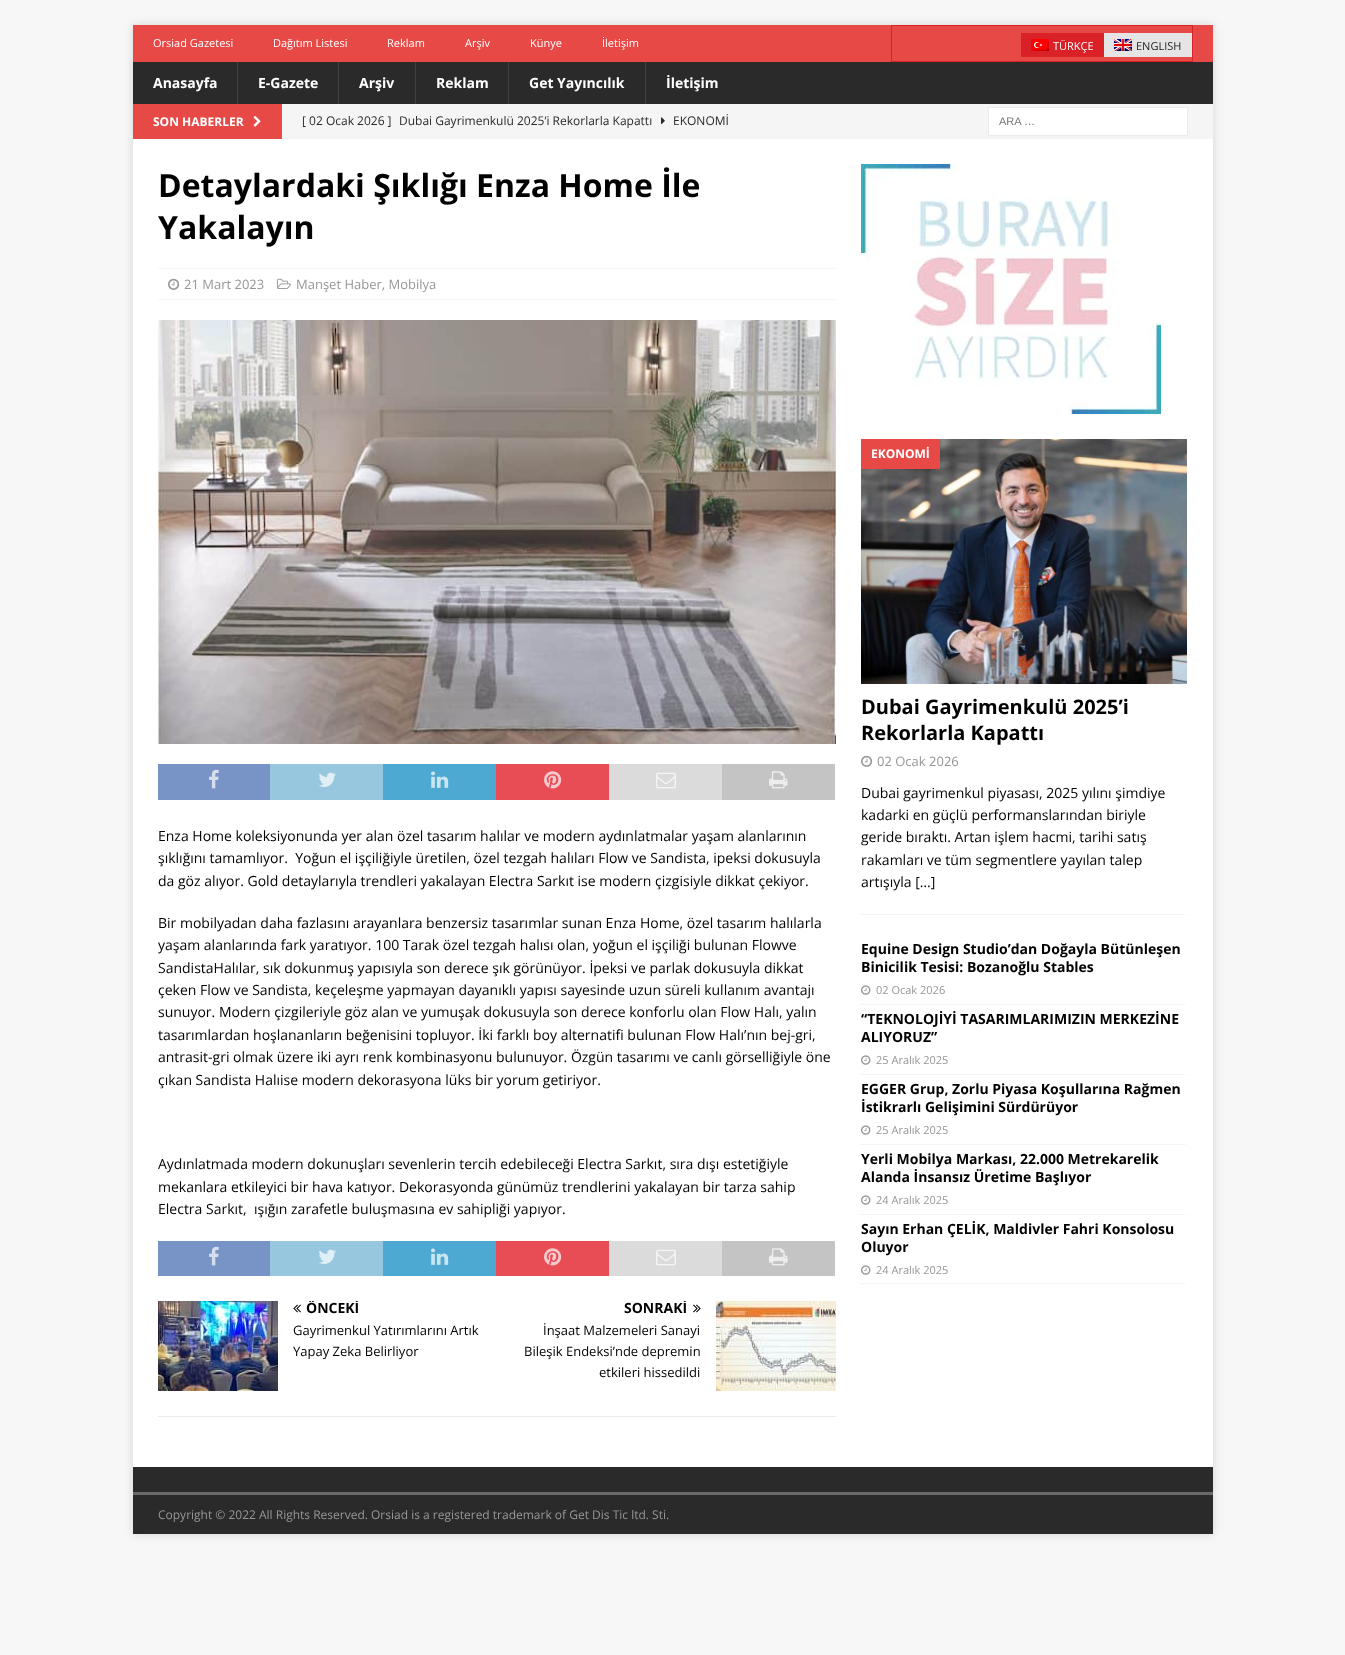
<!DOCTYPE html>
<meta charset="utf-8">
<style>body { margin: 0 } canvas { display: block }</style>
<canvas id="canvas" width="1345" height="1655"></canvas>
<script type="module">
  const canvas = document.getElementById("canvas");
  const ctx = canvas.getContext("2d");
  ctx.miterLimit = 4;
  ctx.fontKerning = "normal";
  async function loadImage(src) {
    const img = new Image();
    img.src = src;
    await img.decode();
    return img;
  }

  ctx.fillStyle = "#f7f7f7";
  ctx.fillRect(0, 0, 1345, 1655);
  ctx.fillStyle = "rgba(50, 50, 50, 0.17)";
  ctx.filter = "blur(5px)";
  ctx.beginPath();
  ctx.rect(133, 25, 1080, 1509);
  ctx.fill();
  ctx.filter = "none";
  ctx.fillStyle = "#e64946";
  ctx.fillRect(133, 25, 1080, 37);
  ctx.font = "11px Open Sans";
  ctx.fillStyle = "#ffffff";
  ctx.fillText("Orsiad Gazetesi", 153, 47);
  ctx.fillText("Dağıtım Listesi", 273, 47);
  ctx.fillText("Reklam", 387, 47);
  ctx.fillText("Arşiv", 465, 47);
  ctx.fillText("Künye", 530, 47);
  ctx.fillText("İletişim", 602, 47);
  ctx.strokeStyle = "#da2127";
  ctx.strokeRect(891.5, 25.5, 301, 36);
  ctx.fillStyle = "#da2127";
  ctx.fillRect(1021, 33, 83, 24);
  ctx.drawImage(await loadImage("img1.png"), 1031, 39, 18, 12);
  ctx.fillStyle = "#ffffff";
  ctx.fillText("TÜRKÇE", 1053, 50);
  ctx.fillStyle = "#e5e5e5";
  ctx.fillRect(1104, 33, 88, 24);
  ctx.drawImage(await loadImage("img2.png"), 1114, 39, 18, 12);
  ctx.fillStyle = "#222222";
  ctx.fillText("ENGLISH", 1136, 50);
  ctx.fillStyle = "#2a2a2a";
  ctx.fillRect(133, 62, 1080, 42);
  ctx.font = "bold 14px Open Sans";
  ctx.fillStyle = "#ffffff";
  ctx.fillText("Anasayfa", 153, 88);
  ctx.fillStyle = "#3f3f3f";
  ctx.fillRect(237, 62, 1, 42);
  ctx.fillStyle = "#ffffff";
  ctx.fillText("E-Gazete", 258, 88);
  ctx.fillStyle = "#3f3f3f";
  ctx.fillRect(338, 62, 1, 42);
  ctx.fillStyle = "#ffffff";
  ctx.fillText("Arşiv", 359, 88);
  ctx.fillStyle = "#3f3f3f";
  ctx.fillRect(415, 62, 1, 42);
  ctx.fillStyle = "#ffffff";
  ctx.fillText("Reklam", 436, 88);
  ctx.fillStyle = "#3f3f3f";
  ctx.fillRect(508, 62, 1, 42);
  ctx.fillStyle = "#ffffff";
  ctx.fillText("Get Yayıncılık", 529, 88);
  ctx.fillStyle = "#3f3f3f";
  ctx.fillRect(645, 62, 1, 42);
  ctx.fillStyle = "#ffffff";
  ctx.fillText("İletişim", 666, 88);
  ctx.fillStyle = "#f5f5f5";
  ctx.fillRect(282, 104, 931, 35);
  ctx.fillStyle = "#e64946";
  ctx.fillRect(133, 104, 149, 35);
  ctx.font = "bold 12px Open Sans";
  ctx.fillStyle = "#ffffff";
  ctx.fillText("SON HABERLER", 153, 126);
  ctx.drawImage(await loadImage("img3.png"), 253, 115, 8, 12);
  ctx.font = "12px Open Sans";
  ctx.fillStyle = "#2a2a2a";
  ctx.fillText("[ 02 Ocak 2026 ]", 302, 125);
  ctx.fillText("Dubai Gayrimenkulü 2025’i Rekorlarla Kapattı", 399, 125);
  ctx.drawImage(await loadImage("img4.png"), 661, 117, 4, 8);
  ctx.fillText("EKONOMİ", 673, 125);
  ctx.fillStyle = "#ffffff";
  ctx.beginPath();
  ctx.rect(988.5, 107.5, 199, 28);
  ctx.fill();
  ctx.strokeStyle = "#ebebeb";
  ctx.stroke();
  ctx.font = "11px Liberation Sans";
  ctx.fillStyle = "#757575";
  ctx.fillText("ARA …", 999, 125);
  ctx.fillStyle = "#ffffff";
  ctx.fillRect(133, 139, 1080, 1328);
  ctx.font = "bold 32px Open Sans";
  ctx.fillStyle = "#000000";
  ctx.fillText("Detaylardaki Şıklığı Enza Home İle", 158, 197);
  ctx.fillText("Yakalayın", 158, 239);
  ctx.beginPath();
  ctx.moveTo(158, 268.5);
  ctx.lineTo(836, 268.5);
  ctx.setLineDash([1, 1]);
  ctx.stroke();
  ctx.beginPath();
  ctx.moveTo(158, 299.5);
  ctx.lineTo(836, 299.5);
  ctx.stroke();
  ctx.drawImage(await loadImage("img5.png"), 168, 278, 12, 12);
  ctx.font = "13px Open Sans";
  ctx.fillStyle = "#979797";
  ctx.fillText("21 Mart 2023", 184, 289);
  ctx.drawImage(await loadImage("img6.png"), 277, 278, 14, 11);
  ctx.fillText("Manşet Haber, Mobilya", 296, 289);
  ctx.drawImage(await loadImage("img7.png"), 158, 320, 678, 424);
  ctx.fillStyle = "#7893c6";
  ctx.fillRect(158, 764, 112, 36);
  ctx.drawImage(await loadImage("img8.png"), 209, 769, 10, 20);
  ctx.fillStyle = "#97c6df";
  ctx.fillRect(270, 764, 113, 36);
  ctx.drawImage(await loadImage("img9.png"), 318, 772, 18, 15);
  ctx.fillStyle = "#4da9d2";
  ctx.fillRect(383, 764, 113, 36);
  ctx.drawImage(await loadImage("img10.png"), 431, 771, 18, 17);
  ctx.fillStyle = "#e84d56";
  ctx.fillRect(496, 764, 113, 36);
  ctx.drawImage(await loadImage("img11.png"), 544, 771, 18, 18);
  ctx.fillStyle = "#dbdbdb";
  ctx.fillRect(609, 764, 113, 36);
  ctx.drawImage(await loadImage("img12.png"), 656, 772, 20, 17);
  ctx.fillStyle = "#c4c4c4";
  ctx.fillRect(722, 764, 113, 36);
  ctx.drawImage(await loadImage("img13.png"), 769, 771, 19, 18);
  ctx.font = "14px Open Sans";
  ctx.fillStyle = "#000000";
  ctx.fillText("Enza Home koleksiyonunda yer alan özel tasarım halılar ve modern aydınlatmalar yaşam alanlarının", 158, 841);
  ctx.fillText("şıklığını tamamlıyor.  Yoğun el işçiliğiyle üretilen, özel tezgah halıları Flow ve Sandista, ipeksi dokusuyla", 158, 863);
  ctx.fillText("da göz alıyor. Gold detaylarıyla trendleri yakalayan Electra Sarkıt ise modern çizgisiyle dikkat çekiyor.", 158, 886);
  ctx.fillText("Bir mobilyadan daha fazlasını arayanlara benzersiz tasarımlar sunan Enza Home, özel tasarım halılarla", 158, 928);
  ctx.save();
  ctx.beginPath();
  ctx.rect(158, 164, 678, 1278);
  ctx.clip();
  ctx.fillText("yaşam alanlarında fark yaratıyor. 100 Tarak özel tezgah halısı olan, yoğun el işçiliği bulunan Flowve", 158, 950);
  ctx.restore();
  ctx.fillText("SandistaHalılar, sık dokunmuş yapısıyla son derece şık görünüyor. İpeksi ve parlak dokusuyla dikkat", 158, 973);
  ctx.fillText("çeken Flow ve Sandista, keçeleşme yapmayan dayanıklı yapısı sayesinde uzun süreli kullanım avantajı", 158, 995);
  ctx.fillText("sunuyor. Modern çizgileriyle göz alan ve yumuşak dokusuyla son derece konforlu olan Flow Halı, yalın", 158, 1017);
  ctx.fillText("tasarımlardan hoşlananların beğenisini topluyor. İki farklı boy alternatifi bulunan Flow Halı’nın bej-gri,", 158, 1040);
  ctx.fillText("antrasit-gri olmak üzere iki ayrı renk kombinasyonu bulunuyor. Özgün tasarımı ve canlı görselliğiyle öne", 158, 1062);
  ctx.fillText("çıkan Sandista Halıise modern dekorasyona lüks bir yorum getiriyor.", 158, 1085);
  ctx.fillText("Aydınlatmada modern dokunuşları sevenlerin tercih edebileceği Electra Sarkıt, sıra dışı estetiğiyle", 158, 1169);
  ctx.fillText("mekanlara etkileyici bir hava katıyor. Dekorasyonda günümüz trendlerini yakalayan bir tarza sahip", 158, 1192);
  ctx.fillText("Electra Sarkıt,  ışığın zarafetle buluşmasına ev sahipliği yapıyor.", 158, 1214);
  ctx.fillStyle = "#7893c6";
  ctx.fillRect(158, 1241, 112, 35);
  ctx.drawImage(await loadImage("img8.png"), 209, 1246, 10, 20);
  ctx.fillStyle = "#97c6df";
  ctx.fillRect(270, 1241, 113, 35);
  ctx.drawImage(await loadImage("img9.png"), 318, 1249, 18, 15);
  ctx.fillStyle = "#4da9d2";
  ctx.fillRect(383, 1241, 113, 35);
  ctx.drawImage(await loadImage("img10.png"), 431, 1248, 18, 17);
  ctx.fillStyle = "#e84d56";
  ctx.fillRect(496, 1241, 113, 35);
  ctx.drawImage(await loadImage("img11.png"), 544, 1248, 18, 18);
  ctx.fillStyle = "#dbdbdb";
  ctx.fillRect(609, 1241, 113, 35);
  ctx.drawImage(await loadImage("img12.png"), 656, 1249, 20, 17);
  ctx.fillStyle = "#c4c4c4";
  ctx.fillRect(722, 1241, 113, 35);
  ctx.drawImage(await loadImage("img13.png"), 769, 1248, 19, 18);
  ctx.fillStyle = "#ebebeb";
  ctx.fillRect(158, 1416, 678, 1);
  ctx.drawImage(await loadImage("img14.png"), 158, 1301, 120, 90);
  ctx.drawImage(await loadImage("img15.png"), 293, 1304, 8, 9);
  ctx.save();
  ctx.beginPath();
  ctx.rect(293, 1301, 195, 14);
  ctx.clip();
  ctx.font = "bold 14px Open Sans";
  ctx.fillStyle = "#000000";
  ctx.fillText("ÖNCEKİ", 306, 1313);
  ctx.restore();
  ctx.font = "13px Open Sans";
  ctx.fillStyle = "#000000";
  ctx.fillText("Gayrimenkul Yatırımlarını Artık", 293, 1335);
  ctx.fillText("Yapay Zeka Belirliyor", 293, 1356);
  ctx.save();
  ctx.beginPath();
  ctx.rect(505, 1301, 196, 14);
  ctx.clip();
  ctx.font = "bold 14px Open Sans";
  ctx.fillText("SONRAKİ", 624, 1313);
  ctx.restore();
  ctx.drawImage(await loadImage("img16.png"), 693, 1304, 8, 9);
  ctx.drawImage(await loadImage("img17.png"), 716, 1301, 120, 90);
  ctx.fillText("İnşaat Malzemeleri Sanayi", 543, 1335);
  ctx.fillText("Bileşik Endeksi’nde depremin", 524, 1356);
  ctx.fillText("etkileri hissedildi", 599, 1377);
  ctx.drawImage(await loadImage("img18.png"), 861, 164, 300, 250);
  ctx.beginPath();
  ctx.moveTo(861, 914.5);
  ctx.lineTo(1187, 914.5);
  ctx.stroke();
  ctx.drawImage(await loadImage("img19.png"), 861, 439, 326, 245);
  ctx.fillStyle = "#e64946";
  ctx.fillRect(861, 439, 79, 30);
  ctx.font = "bold 12px Open Sans";
  ctx.fillStyle = "#ffffff";
  ctx.fillText("EKONOMİ", 871, 458);
  ctx.font = "bold 20px Open Sans";
  ctx.fillStyle = "#000000";
  ctx.fillText("Dubai Gayrimenkulü 2025’i", 861, 714);
  ctx.fillText("Rekorlarla Kapattı", 861, 740);
  ctx.drawImage(await loadImage("img5.png"), 861, 755, 12, 12);
  ctx.font = "13px Open Sans";
  ctx.fillStyle = "#979797";
  ctx.fillText("02 Ocak 2026", 877, 766);
  ctx.font = "14px Open Sans";
  ctx.fillStyle = "#000000";
  ctx.fillText("Dubai gayrimenkul piyasası, 2025 yılını şimdiye", 861, 798);
  ctx.fillText("kadarki en güçlü performanslarından biriyle", 861, 820);
  ctx.fillText("geride bıraktı. Artan işlem hacmi, tarihi satış", 861, 842);
  ctx.fillText("rakamları ve tüm segmentlere yayılan talep", 861, 865);
  ctx.fillText("artışıyla […]", 861, 887);
  ctx.beginPath();
  ctx.moveTo(861, 1004.5);
  ctx.lineTo(1187, 1004.5);
  ctx.stroke();
  ctx.font = "bold 14px Open Sans";
  ctx.fillText("Equine Design Studio’dan Doğayla Bütünleşen", 861, 954);
  ctx.fillText("Binicilik Tesisi: Bozanoğlu Stables", 861, 972);
  ctx.drawImage(await loadImage("img20.png"), 861, 985, 10, 10);
  ctx.font = "11px Open Sans";
  ctx.fillStyle = "#979797";
  ctx.fillText("02 Ocak 2026", 876, 994);
  ctx.beginPath();
  ctx.moveTo(861, 1074.5);
  ctx.lineTo(1187, 1074.5);
  ctx.stroke();
  ctx.font = "bold 14px Open Sans";
  ctx.fillStyle = "#000000";
  ctx.fillText("“TEKNOLOJİYİ TASARIMLARIMIZIN MERKEZİNE", 861, 1024);
  ctx.fillText("ALIYORUZ”", 861, 1042);
  ctx.drawImage(await loadImage("img20.png"), 861, 1055, 10, 10);
  ctx.font = "11px Open Sans";
  ctx.fillStyle = "#979797";
  ctx.fillText("25 Aralık 2025", 876, 1064);
  ctx.beginPath();
  ctx.moveTo(861, 1144.5);
  ctx.lineTo(1187, 1144.5);
  ctx.stroke();
  ctx.font = "bold 14px Open Sans";
  ctx.fillStyle = "#000000";
  ctx.fillText("EGGER Grup, Zorlu Piyasa Koşullarına Rağmen", 861, 1094);
  ctx.fillText("İstikrarlı Gelişimini Sürdürüyor", 861, 1112);
  ctx.drawImage(await loadImage("img20.png"), 861, 1125, 10, 10);
  ctx.font = "11px Open Sans";
  ctx.fillStyle = "#979797";
  ctx.fillText("25 Aralık 2025", 876, 1134);
  ctx.beginPath();
  ctx.moveTo(861, 1214.5);
  ctx.lineTo(1187, 1214.5);
  ctx.stroke();
  ctx.font = "bold 14px Open Sans";
  ctx.fillStyle = "#000000";
  ctx.fillText("Yerli Mobilya Markası, 22.000 Metrekarelik", 861, 1164);
  ctx.fillText("Alanda İnsansız Üretime Başlıyor", 861, 1182);
  ctx.drawImage(await loadImage("img20.png"), 861, 1195, 10, 10);
  ctx.font = "11px Open Sans";
  ctx.fillStyle = "#979797";
  ctx.fillText("24 Aralık 2025", 876, 1204);
  ctx.beginPath();
  ctx.moveTo(861, 1283.5);
  ctx.lineTo(1187, 1283.5);
  ctx.stroke();
  ctx.font = "bold 14px Open Sans";
  ctx.fillStyle = "#000000";
  ctx.fillText("Sayın Erhan ÇELİK, Maldivler Fahri Konsolosu", 861, 1234);
  ctx.fillText("Oluyor", 861, 1252);
  ctx.drawImage(await loadImage("img20.png"), 861, 1265, 10, 10);
  ctx.font = "11px Open Sans";
  ctx.fillStyle = "#979797";
  ctx.fillText("24 Aralık 2025", 876, 1274);
  ctx.fillStyle = "#2a2a2a";
  ctx.fillRect(133, 1467, 1080, 25);
  ctx.fillRect(133, 1495, 1080, 39);
  ctx.fillStyle = "#6a6a6a";
  ctx.fillRect(133, 1492, 1080, 3);
  ctx.font = "12px Open Sans";
  ctx.fillStyle = "#979797";
  ctx.fillText("Copyright © 2022 All Rights Reserved. Orsiad is a registered trademark of Get Dis Tic ltd. Sti.", 158, 1519);
</script>
